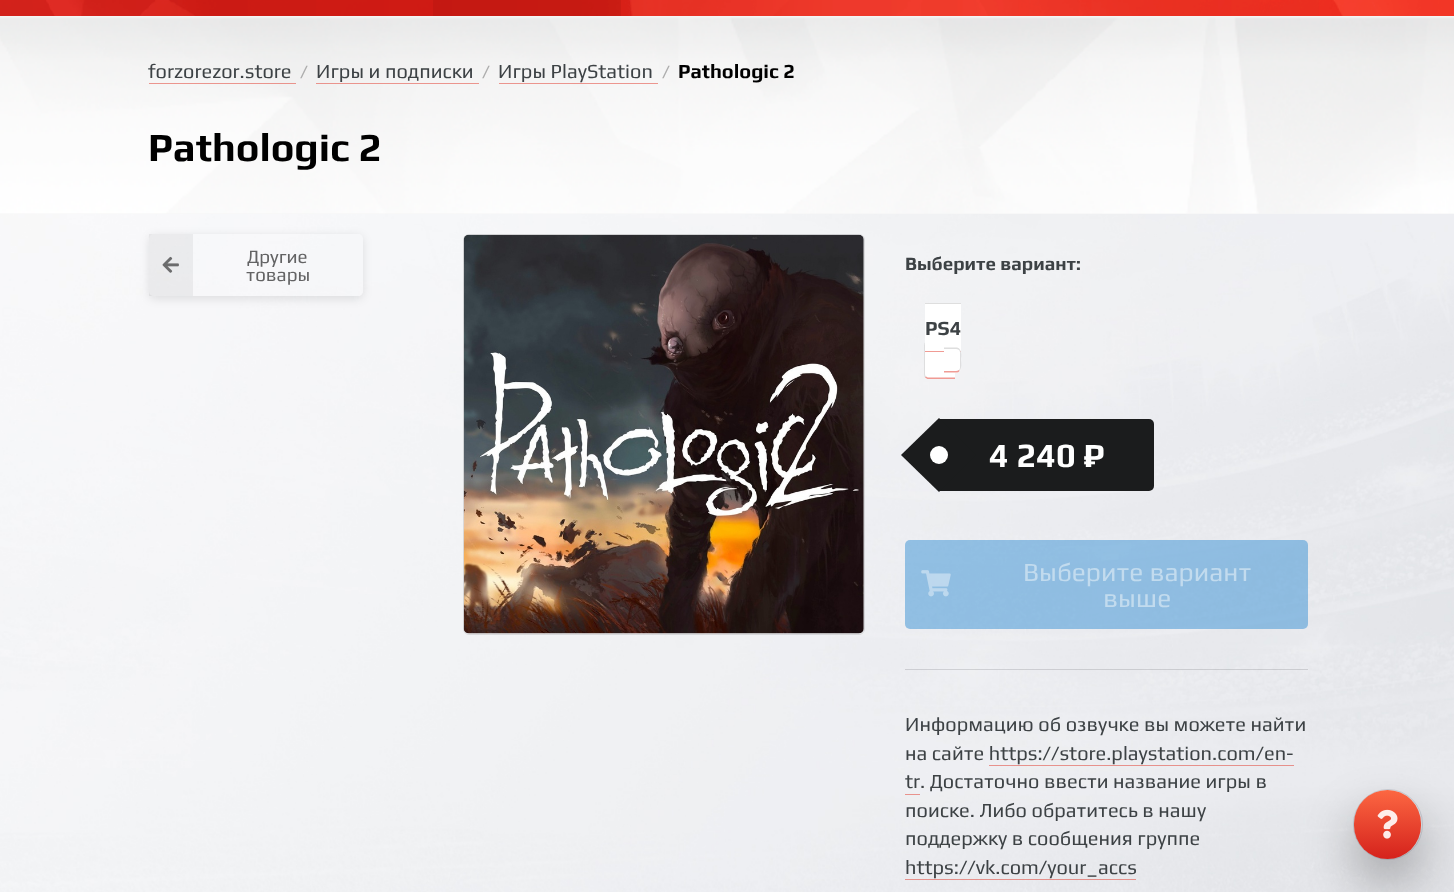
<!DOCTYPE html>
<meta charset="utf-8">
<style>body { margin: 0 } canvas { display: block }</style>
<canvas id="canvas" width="1454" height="892"></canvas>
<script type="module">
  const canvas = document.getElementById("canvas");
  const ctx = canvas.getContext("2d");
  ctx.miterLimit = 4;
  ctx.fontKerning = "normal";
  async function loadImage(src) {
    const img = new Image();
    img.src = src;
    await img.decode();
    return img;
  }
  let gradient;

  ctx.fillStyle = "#ffffff";
  ctx.fillRect(0, 0, 1454, 892);
  ctx.drawImage(await loadImage("img1.png"), 0, 214, 1454, 678);
  ctx.drawImage(await loadImage("img2.png"), 0, 0, 1454, 16);
  ctx.fillStyle = "rgba(0, 0, 0, 0.05)";
  ctx.fillRect(433, 0, 188, 16);
  ctx.fillStyle = "#f4f4f4";
  ctx.fillRect(0, 16, 1454, 198);
  ctx.drawImage(await loadImage("img3.png"), 0, 17, 1454, 197);
  ctx.font = "20px Play";
  ctx.fillStyle = "#3d4245";
  ctx.fillText("forzorezor.store", 148, 78);
  ctx.fillStyle = "rgba(225, 54, 40, 0.5)";
  ctx.fillRect(149, 83, 147, 1);
  ctx.font = "18.75px Play";
  ctx.fillStyle = "#adadad";
  ctx.fillText("/", 300, 78);
  ctx.font = "20px Play";
  ctx.fillStyle = "#3d4245";
  ctx.fillText("Игры и подписки", 316, 78);
  ctx.fillStyle = "rgba(225, 54, 40, 0.5)";
  ctx.fillRect(316, 83, 163, 1);
  ctx.font = "18.75px Play";
  ctx.fillStyle = "#adadad";
  ctx.fillText("/", 482, 78);
  ctx.font = "20px Play";
  ctx.fillStyle = "#3d4245";
  ctx.fillText("Игры PlayStation", 498, 78);
  ctx.fillStyle = "rgba(225, 54, 40, 0.5)";
  ctx.fillRect(499, 83, 159, 1);
  ctx.font = "18.75px Play";
  ctx.fillStyle = "#adadad";
  ctx.fillText("/", 662, 78);
  ctx.font = "bold 20px Play";
  ctx.fillStyle = "#000000";
  ctx.fillText("Pathologic 2", 678, 78);
  ctx.font = "bold 40px Play";
  ctx.fillText("Pathologic 2", 148, 161);
  ctx.save();
  ctx.beginPath();
  ctx.moveTo(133, 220);
  ctx.lineTo(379, 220);
  ctx.lineTo(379, 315);
  ctx.lineTo(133, 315);
  ctx.closePath();
  ctx.moveTo(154, 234);
  ctx.lineTo(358, 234);
  ctx.bezierCurveTo(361, 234, 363, 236, 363, 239);
  ctx.lineTo(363, 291);
  ctx.bezierCurveTo(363, 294, 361, 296, 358, 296);
  ctx.lineTo(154, 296);
  ctx.bezierCurveTo(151, 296, 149, 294, 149, 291);
  ctx.lineTo(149, 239);
  ctx.bezierCurveTo(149, 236, 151, 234, 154, 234);
  ctx.closePath();
  ctx.clip("evenodd");
  ctx.fillStyle = "rgba(0, 0, 0, 0.1)";
  ctx.filter = "blur(5px)";
  ctx.beginPath();
  ctx.roundRect(149, 236, 214, 63, 5);
  ctx.fill();
  ctx.filter = "none";
  ctx.restore();
  ctx.fillStyle = "rgba(0, 0, 0, 0.05)";
  ctx.fillRect(149, 234, 44, 62);
  ctx.drawImage(await loadImage("img4.png"), 162, 256, 17, 17);
  ctx.font = "18.75px Play";
  ctx.fillStyle = "#636364";
  ctx.fillText("Другие", 247, 263);
  ctx.fillText("товары", 246, 281);
  ctx.beginPath();
  ctx.roundRect(463.5, 234.5, 401, 400, 5.5);
  ctx.strokeStyle = "rgba(0, 0, 0, 0.1)";
  ctx.stroke();
  ctx.drawImage(await loadImage("img5.png"), 463, 234, 401, 400);
  ctx.font = "bold 18.75px Play";
  ctx.fillStyle = "#3d4245";
  ctx.fillText("Выберите вариант:", 905, 270);
  ctx.fillStyle = "#ffffff";
  ctx.beginPath();
  ctx.roundRect(924, 341, 31, 38, [5, 0, 0, 5]);
  ctx.fill();
  ctx.fillStyle = "rgba(225, 54, 40, 0.5)";
  ctx.beginPath();
  ctx.moveTo(955, 379);
  ctx.lineTo(927.5, 379);
  ctx.lineTo(925, 377.5);
  ctx.lineTo(926, 376.5);
  ctx.bezierCurveTo(926.5, 377, 927.5, 377.5, 929, 377.5);
  ctx.lineTo(955, 377.5);
  ctx.closePath();
  ctx.fill();
  ctx.fillStyle = "rgba(34, 36, 38, 0.15)";
  ctx.beginPath();
  ctx.moveTo(925, 377.5);
  ctx.bezierCurveTo(924.5, 376.5, 924, 375, 924, 374);
  ctx.lineTo(924, 346);
  ctx.bezierCurveTo(924, 345, 924.5, 343.5, 925, 342.5);
  ctx.lineTo(926, 343.5);
  ctx.bezierCurveTo(925.5, 344, 925, 345, 925, 346);
  ctx.lineTo(925, 374);
  ctx.bezierCurveTo(925, 375, 925.5, 376, 926, 376.5);
  ctx.closePath();
  ctx.fill();
  ctx.fillStyle = "#ffffff";
  ctx.fillRect(925, 304, 36, 49);
  ctx.font = "bold 20px Play";
  ctx.fillStyle = "#3d4245";
  ctx.fillText("PS4", 925, 335);
  ctx.fillStyle = "#dedede";
  ctx.fillRect(925, 303, 36, 1);
  ctx.fillStyle = "#f09b94";
  ctx.fillRect(925, 351, 36, 1);
  ctx.fillStyle = "#ffffff";
  ctx.beginPath();
  ctx.roundRect(944, 348, 17, 25, [0, 5, 5, 0]);
  ctx.fill();
  ctx.fillStyle = "#dedede";
  ctx.beginPath();
  ctx.moveTo(944, 347.5);
  ctx.lineTo(956, 347.5);
  ctx.bezierCurveTo(957.5, 347.5, 959, 348, 959.5, 349);
  ctx.lineTo(959, 350);
  ctx.bezierCurveTo(958, 349.5, 957, 349, 956, 349);
  ctx.lineTo(944, 349);
  ctx.closePath();
  ctx.fill();
  ctx.fillStyle = "rgba(34, 36, 38, 0.15)";
  ctx.beginPath();
  ctx.moveTo(959, 370);
  ctx.bezierCurveTo(959.5, 369.5, 960, 368.5, 960, 367.5);
  ctx.lineTo(960, 352.5);
  ctx.bezierCurveTo(960, 351.5, 959.5, 350.5, 959, 350);
  ctx.lineTo(959.5, 349);
  ctx.bezierCurveTo(962, 351.5, 961, 357.5, 961, 360);
  ctx.bezierCurveTo(961, 362.5, 962, 368.5, 959.5, 371);
  ctx.closePath();
  ctx.fill();
  ctx.fillStyle = "#f09b94";
  ctx.beginPath();
  ctx.moveTo(944, 372.5);
  ctx.lineTo(956, 372.5);
  ctx.bezierCurveTo(957.5, 372.5, 959, 372, 959.5, 371);
  ctx.lineTo(959, 370);
  ctx.bezierCurveTo(958, 370.5, 957, 371, 956, 371);
  ctx.lineTo(944, 371);
  ctx.closePath();
  ctx.fill();
  ctx.fillStyle = "#1b1c1d";
  ctx.beginPath();
  ctx.roundRect(939, 419, 215, 72, [0, 5, 5, 0]);
  ctx.fill();
  ctx.beginPath();
  ctx.moveTo(901, 455);
  ctx.lineTo(939, 418);
  ctx.lineTo(976, 455);
  ctx.lineTo(939, 492);
  ctx.closePath();
  ctx.fill();
  ctx.font = "bold 34px Play";
  ctx.fillStyle = "#ffffff";
  ctx.fillText("4 240 ₽", 989, 467);
  ctx.beginPath();
  ctx.arc(939, 455, 9, 0, Math.PI * 2);
  ctx.fill();
  ctx.fillStyle = "rgba(33, 133, 208, 0.45)";
  ctx.beginPath();
  ctx.roundRect(905, 540, 403, 89, 5);
  ctx.fill();
  ctx.drawImage(await loadImage("img6.png"), 921, 570, 30, 27);
  ctx.font = "26.25px Play";
  ctx.fillStyle = "#c2dbee";
  ctx.fillText("Выберите вариант", 1023, 581);
  ctx.fillText("выше", 1103, 607);
  ctx.fillStyle = "rgba(34, 36, 38, 0.15)";
  ctx.fillRect(905, 669, 403, 1);
  ctx.font = "20px Play";
  ctx.fillStyle = "#3d4245";
  ctx.fillText("Информацию об озвучке вы можете найти", 905, 731);
  ctx.fillText("на сайте https://store.playstation.com/en-", 905, 760);
  ctx.fillText("tr. Достаточно ввести название игры в", 905, 788);
  ctx.fillStyle = "rgba(225, 54, 40, 0.5)";
  ctx.fillRect(989, 765, 305, 1);
  ctx.fillStyle = "#e8938d";
  ctx.fillRect(905, 794, 15, 1);
  ctx.fillStyle = "#3d4245";
  ctx.fillText("поиске. Либо обратитесь в нашу", 905, 817);
  ctx.fillText("поддержку в сообщения группе", 905, 845);
  ctx.fillText("https://vk.com/your_accs", 905, 874);
  ctx.fillStyle = "rgba(225, 54, 40, 0.5)";
  ctx.fillRect(905, 879, 231, 1);
  ctx.fillStyle = "rgba(0, 0, 0, 0.3)";
  ctx.filter = "blur(25px)";
  ctx.beginPath();
  ctx.roundRect(1354, 815, 67, 69, 33.5);
  ctx.fill();
  ctx.filter = "none";
  ctx.beginPath();
  ctx.roundRect(1353.5, 789.5, 69, 70, 34.5);
  ctx.strokeStyle = "rgba(0, 20, 51, 0.12)";
  ctx.stroke();
  gradient = ctx.createLinearGradient(1388, 584, 1388, 859);
  gradient.addColorStop(0, "#7b1410");
  gradient.addColorStop(0.5, "#d5221c");
  gradient.addColorStop(0.75, "#fc6742");
  gradient.addColorStop(1, "#d5221c");
  ctx.fillStyle = gradient;
  ctx.beginPath();
  ctx.roundRect(1354, 790, 67, 69, 33.5);
  ctx.fill();
  ctx.drawImage(await loadImage("img7.png"), 1377, 809, 21, 30);
</script>
